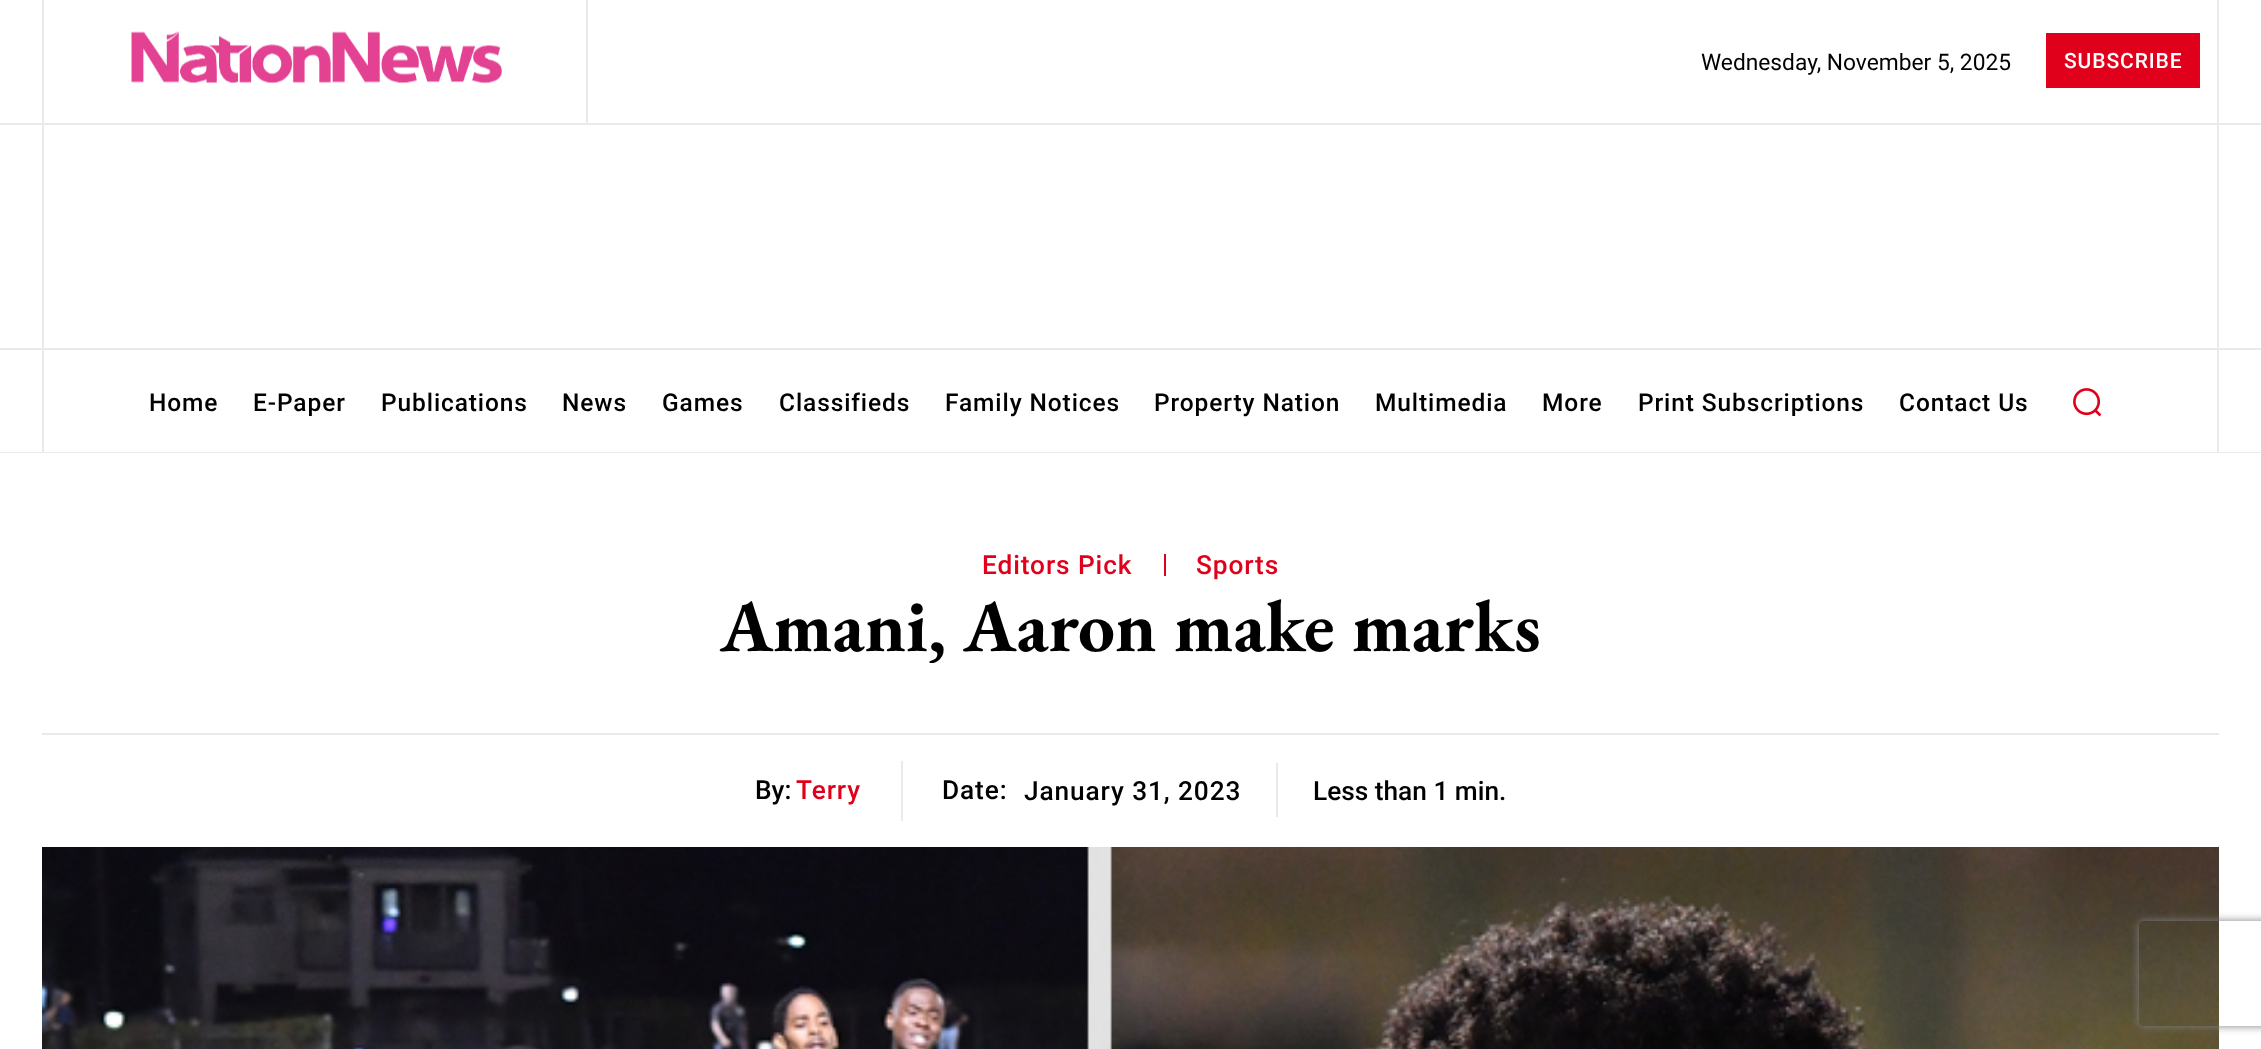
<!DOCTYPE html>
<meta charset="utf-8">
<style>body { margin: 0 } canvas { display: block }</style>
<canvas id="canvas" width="2261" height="1049"></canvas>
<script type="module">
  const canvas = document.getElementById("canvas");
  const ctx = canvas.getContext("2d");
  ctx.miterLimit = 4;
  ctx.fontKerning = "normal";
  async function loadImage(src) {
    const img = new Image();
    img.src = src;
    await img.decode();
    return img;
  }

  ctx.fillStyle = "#ffffff";
  ctx.fillRect(0, 0, 2261, 1049);
  ctx.fillStyle = "#eaeaea";
  ctx.fillRect(42, 0, 2, 123);
  ctx.drawImage(await loadImage("img1.png"), 131, 31, 371, 53);
  ctx.fillRect(2217, 0, 2, 123);
  ctx.fillRect(586, 0, 2, 123);
  ctx.font = "22.75px Roboto";
  ctx.fillStyle = "#000000";
  ctx.fillText("Wednesday, November 5, 2025", 1701, 70);
  ctx.fillStyle = "#e0001b";
  ctx.fillRect(2046, 33, 154, 55);
  ctx.letterSpacing = "0.9px";
  ctx.font = "500 21px Roboto";
  ctx.fillStyle = "#ffffff";
  ctx.fillText("SUBSCRIBE", 2064, 68);
  ctx.fillStyle = "#eaeaea";
  ctx.fillRect(0, 123, 2261, 2);
  ctx.fillRect(0, 348, 2261, 2);
  ctx.fillRect(2217, 123, 2, 227);
  ctx.fillRect(42, 123, 2, 227);
  ctx.fillRect(0, 452, 2261, 1);
  ctx.fillRect(2217, 350, 2, 103);
  ctx.fillRect(42, 350, 2, 103);
  ctx.font = "500 24.5px Roboto";
  ctx.fillStyle = "#000000";
  ctx.fillText("Home", 149, 411);
  ctx.fillText("E-Paper", 253, 411);
  ctx.fillText("Publications", 381, 411);
  ctx.fillText("News", 562, 411);
  ctx.fillText("Games", 662, 411);
  ctx.fillText("Classifieds", 779, 411);
  ctx.fillText("Family Notices", 945, 411);
  ctx.fillText("Property Nation", 1154, 411);
  ctx.fillText("Multimedia", 1375, 411);
  ctx.fillText("More", 1542, 411);
  ctx.fillText("Print Subscriptions", 1638, 411);
  ctx.fillText("Contact Us", 1899, 411);
  ctx.drawImage(await loadImage("img2.png"), 2073, 388, 29, 29);
  ctx.font = "500 26.25px Roboto";
  ctx.fillStyle = "#e0001b";
  ctx.fillText("Editors Pick", 982, 574);
  ctx.fillRect(1164, 554, 2, 22);
  ctx.fillText("Sports", 1196, 574);
  ctx.letterSpacing = "0px";
  ctx.font = "bold 73.5px EB Garamond";
  ctx.fillStyle = "#000000";
  ctx.fillText("Amani, Aaron make marks", 720, 651);
  ctx.fillStyle = "#eaeaea";
  ctx.fillRect(42, 733, 2177, 2);
  ctx.font = "500 26.25px Roboto";
  ctx.fillStyle = "#000000";
  ctx.fillText("By:", 755, 799);
  ctx.letterSpacing = "0.9px";
  ctx.fillStyle = "#e0001b";
  ctx.fillText("Terry", 796, 799);
  ctx.fillStyle = "#eaeaea";
  ctx.fillRect(901, 761, 2, 60);
  ctx.fillStyle = "#000000";
  ctx.fillText("Date:", 942, 799);
  ctx.fillText("January 31, 2023", 1024, 800);
  ctx.fillStyle = "#eaeaea";
  ctx.fillRect(1276, 763, 2, 54);
  ctx.letterSpacing = "0px";
  ctx.fillStyle = "#000000";
  ctx.fillText("Less than 1 min.", 1313, 800);
  ctx.drawImage(await loadImage("img3.png"), 42, 847, 2177, 202);
  ctx.save();
  ctx.beginPath();
  ctx.moveTo(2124, 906);
  ctx.lineTo(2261, 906);
  ctx.lineTo(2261, 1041);
  ctx.lineTo(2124, 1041);
  ctx.closePath();
  ctx.moveTo(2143, 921);
  ctx.lineTo(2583, 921);
  ctx.bezierCurveTo(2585, 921, 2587, 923, 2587, 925);
  ctx.lineTo(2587, 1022);
  ctx.bezierCurveTo(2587, 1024, 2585, 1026, 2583, 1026);
  ctx.lineTo(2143, 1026);
  ctx.bezierCurveTo(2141, 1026, 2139, 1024, 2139, 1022);
  ctx.lineTo(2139, 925);
  ctx.bezierCurveTo(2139, 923, 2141, 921, 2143, 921);
  ctx.closePath();
  ctx.clip("evenodd");
  ctx.fillStyle = "#808080";
  ctx.filter = "blur(4.5px)";
  ctx.beginPath();
  ctx.roundRect(2139, 921, 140, 105, 4);
  ctx.fill();
  ctx.filter = "none";
  ctx.restore();
</script>
